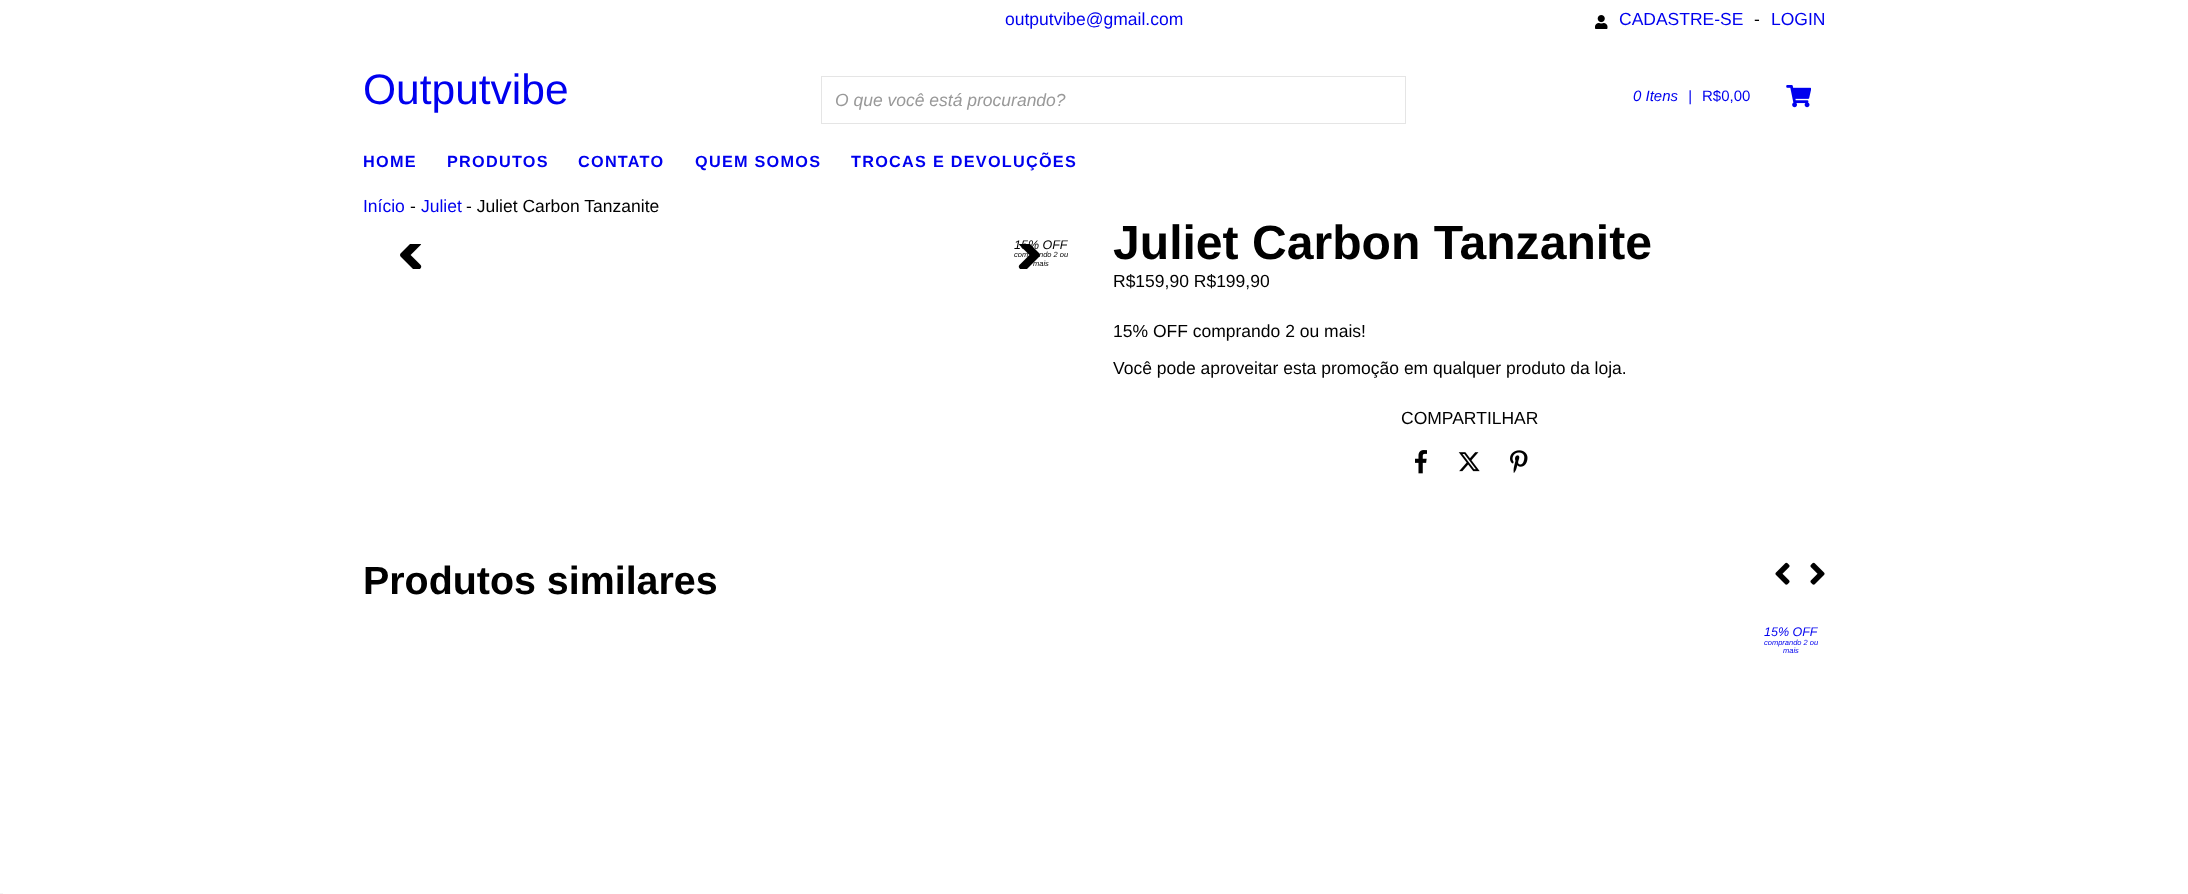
<!DOCTYPE html>
<meta charset="utf-8">
<style>body { margin: 0 } canvas { display: block }</style>
<canvas id="canvas" width="2188" height="894"></canvas>
<script type="module">
  const canvas = document.getElementById("canvas");
  const ctx = canvas.getContext("2d");
  ctx.miterLimit = 4;
  ctx.fontKerning = "normal";
  async function loadImage(src) {
    const img = new Image();
    img.src = src;
    await img.decode();
    return img;
  }

  ctx.fillStyle = "#ffffff";
  ctx.fillRect(0, 0, 2188, 894);
  ctx.font = "17.5px Liberation Sans";
  ctx.fillStyle = "#0000ee";
  ctx.fillText("outputvibe@gmail.com", 1005, 25);
  ctx.drawImage(await loadImage("img1.png"), 1595, 15, 13, 14);
  ctx.fillText("CADASTRE-SE", 1619, 25);
  ctx.fillStyle = "#000000";
  ctx.fillText("-", 1754, 25);
  ctx.fillStyle = "#0000ee";
  ctx.fillText("LOGIN", 1771, 25);
  ctx.font = "42.5px Liberation Sans";
  ctx.fillText("Outputvibe", 363, 104);
  ctx.strokeStyle = "#e5e5e5";
  ctx.strokeRect(821.5, 76.5, 584, 47);
  ctx.font = "italic 17.5px Liberation Sans";
  ctx.fillStyle = "#999999";
  ctx.fillText("O que você está procurando?", 835, 106);
  ctx.font = "italic 15px Liberation Sans";
  ctx.fillStyle = "#0000ee";
  ctx.fillText("0 Itens", 1633, 101);
  ctx.fillText("|", 1688, 101);
  ctx.font = "15px Liberation Sans";
  ctx.fillText("R$0,00", 1702, 101);
  ctx.drawImage(await loadImage("img2.png"), 1786, 85, 25, 23);
  ctx.letterSpacing = "1.25px";
  ctx.font = "bold 16.25px Liberation Sans";
  ctx.fillText("HOME", 363, 167);
  ctx.fillText("PRODUTOS", 447, 167);
  ctx.fillText("CONTATO", 578, 167);
  ctx.fillText("QUEM SOMOS", 695, 167);
  ctx.fillText("TROCAS E DEVOLUÇÕES", 851, 167);
  ctx.letterSpacing = "0px";
  ctx.font = "17.5px Liberation Sans";
  ctx.fillText("Início", 363, 212);
  ctx.fillStyle = "#000000";
  ctx.fillText("-", 410, 212);
  ctx.fillStyle = "#0000ee";
  ctx.fillText("Juliet", 421, 212);
  ctx.fillStyle = "#000000";
  ctx.fillText("- Juliet Carbon Tanzanite", 466, 212);
  ctx.drawImage(await loadImage("img3.png"), 400, 244, 22, 25);
  ctx.drawImage(await loadImage("img4.png"), 1018, 244, 22, 25);
  ctx.font = "italic 12.5px Liberation Sans";
  ctx.fillText("15% OFF", 1014, 249);
  ctx.font = "italic 7.5px Liberation Sans";
  ctx.fillText("com", 1014, 257);
  ctx.fillText("ndo 2 ou", 1039, 257);
  ctx.fillText("mais", 1033, 266);
  ctx.font = "bold 48.1px Liberation Sans";
  ctx.fillText("Juliet Carbon Tanzanite", 1113, 259);
  ctx.font = "17.5px Liberation Sans";
  ctx.fillText("R$159,90 R$199,90", 1113, 287);
  ctx.fillText("15% OFF comprando 2 ou mais!", 1113, 337);
  ctx.fillText("Você pode aproveitar esta promoção em qualquer produto da loja.", 1113, 374);
  ctx.fillText("COMPARTILHAR", 1401, 424);
  ctx.drawImage(await loadImage("img5.png"), 1415, 450, 12, 24);
  ctx.drawImage(await loadImage("img6.png"), 1458, 452, 22, 20);
  ctx.drawImage(await loadImage("img7.png"), 1510, 450, 18, 23);
  ctx.font = "bold 39.4px Liberation Sans";
  ctx.fillText("Produtos similares", 363, 594);
  ctx.drawImage(await loadImage("img8.png"), 1775, 562, 15, 23);
  ctx.drawImage(await loadImage("img9.png"), 1810, 562, 15, 23);
  ctx.font = "italic 12.5px Liberation Sans";
  ctx.fillStyle = "#0000ee";
  ctx.fillText("15% OFF", 1764, 636);
  ctx.font = "italic 7.5px Liberation Sans";
  ctx.fillText("comprando 2 ou", 1764, 645);
  ctx.fillText("mais", 1783, 653);
  ctx.fillStyle = "#f5f5f5";
  ctx.fillRect(0, 893, 3, 1);
</script>
